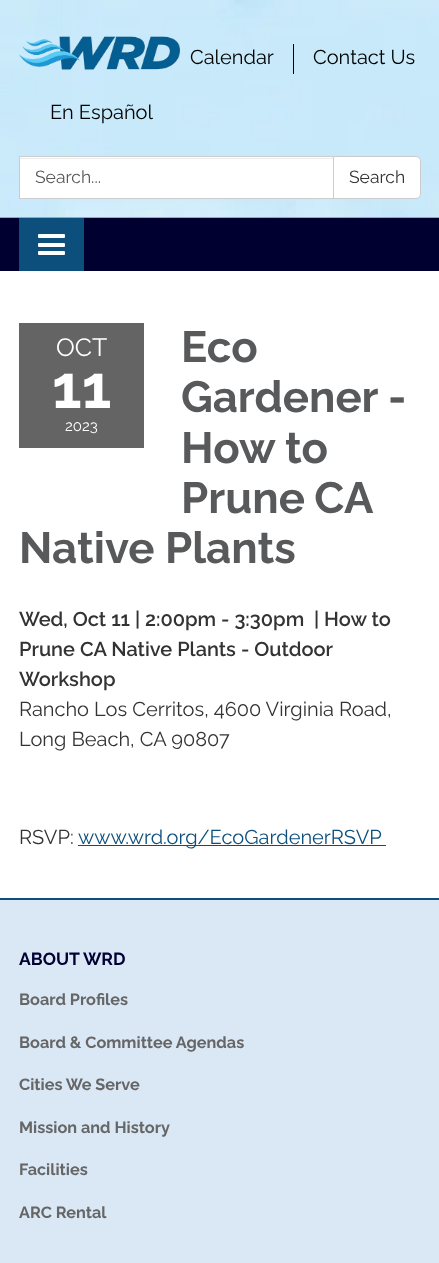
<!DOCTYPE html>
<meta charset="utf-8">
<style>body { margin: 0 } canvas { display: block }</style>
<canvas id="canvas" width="439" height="1263"></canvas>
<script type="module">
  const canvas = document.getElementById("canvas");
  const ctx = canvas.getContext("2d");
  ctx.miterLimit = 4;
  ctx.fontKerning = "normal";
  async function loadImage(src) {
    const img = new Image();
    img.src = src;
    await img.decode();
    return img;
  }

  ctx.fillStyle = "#646464";
  ctx.fillRect(0, 0, 439, 1263);
  ctx.drawImage(await loadImage("img1.png"), 0, 0, 439, 218);
  ctx.drawImage(await loadImage("img2.png"), 18, 36, 162, 34);
  ctx.font = "20px Raleway";
  ctx.fillStyle = "#000000";
  ctx.fillText("Calendar", 190, 64);
  ctx.fillRect(293, 44, 1, 30);
  ctx.fillText("Contact Us", 313, 64);
  ctx.fillText("En Español", 50, 119);
  ctx.fillStyle = "#ffffff";
  ctx.fillRect(20, 157, 313, 41);
  ctx.fillStyle = "#ececec";
  ctx.fillRect(20, 158, 313, 1);
  ctx.strokeStyle = "#cccccc";
  ctx.strokeRect(19.5, 156.5, 314, 42);
  ctx.font = "17.5px Raleway";
  ctx.fillStyle = "#58595b";
  ctx.fillText("Search...", 35, 183);
  ctx.fillStyle = "#ffffff";
  ctx.beginPath();
  ctx.roundRect(333.5, 156.5, 87, 42, [0, 4.5, 4.5, 0]);
  ctx.fill();
  ctx.stroke();
  ctx.fillStyle = "#333333";
  ctx.fillText("Search", 349, 183);
  ctx.fillStyle = "#000030";
  ctx.fillRect(0, 218, 439, 53);
  ctx.fillStyle = "#0c4f7c";
  ctx.fillRect(19, 218, 65, 53);
  ctx.fillStyle = "#ffffff";
  ctx.beginPath();
  ctx.roundRect(38, 234, 27, 4, 1);
  ctx.fill();
  ctx.beginPath();
  ctx.roundRect(38, 243, 27, 4, 1);
  ctx.fill();
  ctx.beginPath();
  ctx.roundRect(38, 251, 27, 4, 1);
  ctx.fill();
  ctx.fillRect(0, 271, 439, 627);
  ctx.font = "bold 43.75px Raleway";
  ctx.fillStyle = "#58595b";
  ctx.fillText("Eco", 181, 362);
  ctx.fillText("Gardener -", 181, 412);
  ctx.fillText("How to", 181, 463);
  ctx.wordSpacing = "-1px";
  ctx.fillText("Prune CA", 181, 513);
  ctx.wordSpacing = "0px";
  ctx.fillText("Native Plants", 19, 563);
  ctx.fillStyle = "#646464";
  ctx.fillRect(19, 323, 125, 125);
  ctx.font = "25px Raleway";
  ctx.fillStyle = "#ffffff";
  ctx.fillText("OCT", 56, 356);
  ctx.font = "bold 60px Raleway";
  ctx.fillText("11", 52, 408);
  ctx.font = "15px Raleway";
  ctx.fillText("2023", 65, 431);
  ctx.font = "600 20px Raleway";
  ctx.fillStyle = "#333333";
  ctx.fillText("Wed, Oct 11 | 2:00pm - 3:30pm  | How to", 19, 626);
  ctx.fillText("Prune CA Native Plants - Outdoor", 19, 656);
  ctx.fillText("Workshop", 19, 686);
  ctx.font = "20px Raleway";
  ctx.fillText("Rancho Los Cerritos, 4600 Virginia Road,", 19, 716);
  ctx.fillText("Long Beach, CA 90807", 19, 746);
  ctx.fillText("RSVP:", 19, 844);
  ctx.fillStyle = "#0c4f7c";
  ctx.fillRect(78, 845, 308, 1);
  ctx.fillText("www.wrd.org/EcoGardenerRSVP", 78, 844);
  ctx.fillRect(0, 898, 439, 2);
  ctx.fillStyle = "#dae8f6";
  ctx.fillRect(0, 900, 439, 363);
  ctx.font = "bold 17.5px Raleway";
  ctx.fillStyle = "#000033";
  ctx.fillText("ABOUT WRD", 19, 965);
  ctx.font = "bold 16.25px Raleway";
  ctx.fillStyle = "#666666";
  ctx.fillText("Board Profiles", 19, 1005);
  ctx.fillText("Board & Committee Agendas", 19, 1048);
  ctx.fillText("Cities We Serve", 19, 1090);
  ctx.fillText("Mission and History", 19, 1133);
  ctx.fillText("Facilities", 19, 1175);
  ctx.fillText("ARC Rental", 19, 1218);
</script>
